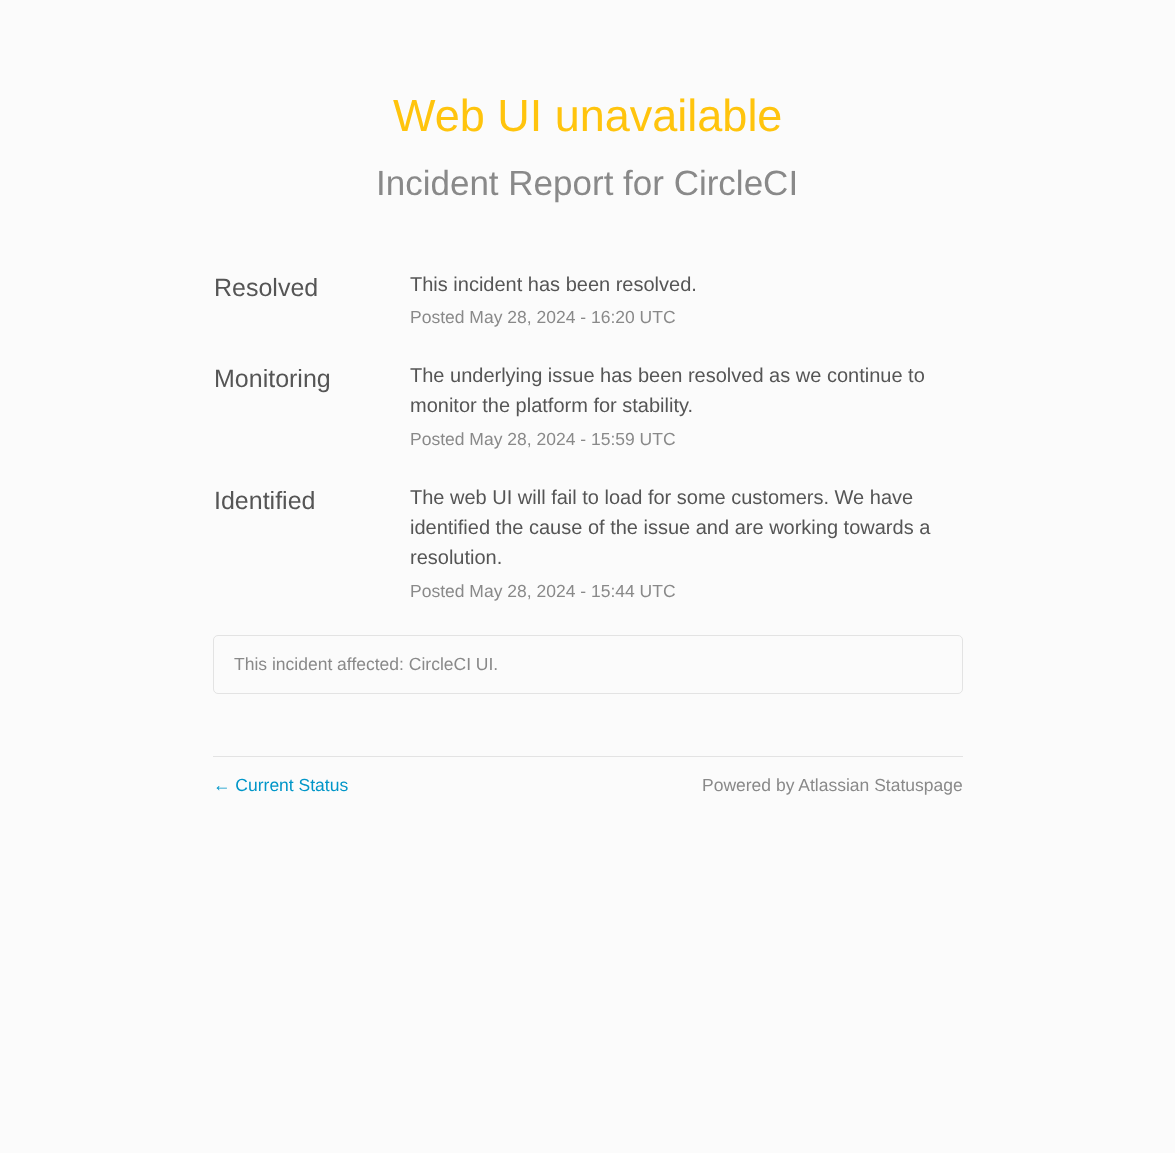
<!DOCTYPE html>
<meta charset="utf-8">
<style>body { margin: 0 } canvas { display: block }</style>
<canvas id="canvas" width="1175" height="1153"></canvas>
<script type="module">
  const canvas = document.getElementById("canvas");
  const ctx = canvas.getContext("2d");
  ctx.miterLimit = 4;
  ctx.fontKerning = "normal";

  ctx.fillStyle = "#fbfbfb";
  ctx.fillRect(0, 0, 1175, 1153);
  ctx.font = "45px Liberation Sans";
  ctx.fillStyle = "#ffc40d";
  ctx.fillText("Web UI unavailable", 393, 131);
  ctx.font = "35px Liberation Sans";
  ctx.fillStyle = "#898989";
  ctx.fillText("Incident Report for CircleCI", 376, 195);
  ctx.font = "25px Liberation Sans";
  ctx.fillStyle = "#555555";
  ctx.fillText("Resolved", 214, 296);
  ctx.font = "20px Liberation Sans";
  ctx.fillText("This incident has been resolved.", 410, 291);
  ctx.font = "17.5px Liberation Sans";
  ctx.fillStyle = "#898989";
  ctx.fillText("Posted May 28, 2024 - 16:20 UTC", 410, 323);
  ctx.font = "25px Liberation Sans";
  ctx.fillStyle = "#555555";
  ctx.fillText("Monitoring", 214, 387);
  ctx.font = "20px Liberation Sans";
  ctx.fillText("The underlying issue has been resolved as we continue to", 410, 382);
  ctx.fillText("monitor the platform for stability.", 410, 412);
  ctx.font = "17.5px Liberation Sans";
  ctx.fillStyle = "#898989";
  ctx.fillText("Posted May 28, 2024 - 15:59 UTC", 410, 445);
  ctx.font = "25px Liberation Sans";
  ctx.fillStyle = "#555555";
  ctx.fillText("Identified", 214, 509);
  ctx.font = "20px Liberation Sans";
  ctx.fillText("The web UI will fail to load for some customers. We have", 410, 504);
  ctx.fillText("identified the cause of the issue and are working towards a", 410, 534);
  ctx.fillText("resolution.", 410, 564);
  ctx.font = "17.5px Liberation Sans";
  ctx.fillStyle = "#898989";
  ctx.fillText("Posted May 28, 2024 - 15:44 UTC", 410, 597);
  ctx.beginPath();
  ctx.roundRect(213.5, 635.5, 749, 58, 4.5);
  ctx.strokeStyle = "#e3e3e3";
  ctx.stroke();
  ctx.fillText("This incident affected: CircleCI UI.", 234, 670);
  ctx.fillStyle = "#e3e3e3";
  ctx.fillRect(213, 756, 750, 1);
  ctx.fillStyle = "#0096c8";
  ctx.fillText("← Current Status", 213, 791);
  ctx.fillStyle = "#898989";
  ctx.fillText("Powered by Atlassian Statuspage", 702, 791);
</script>
